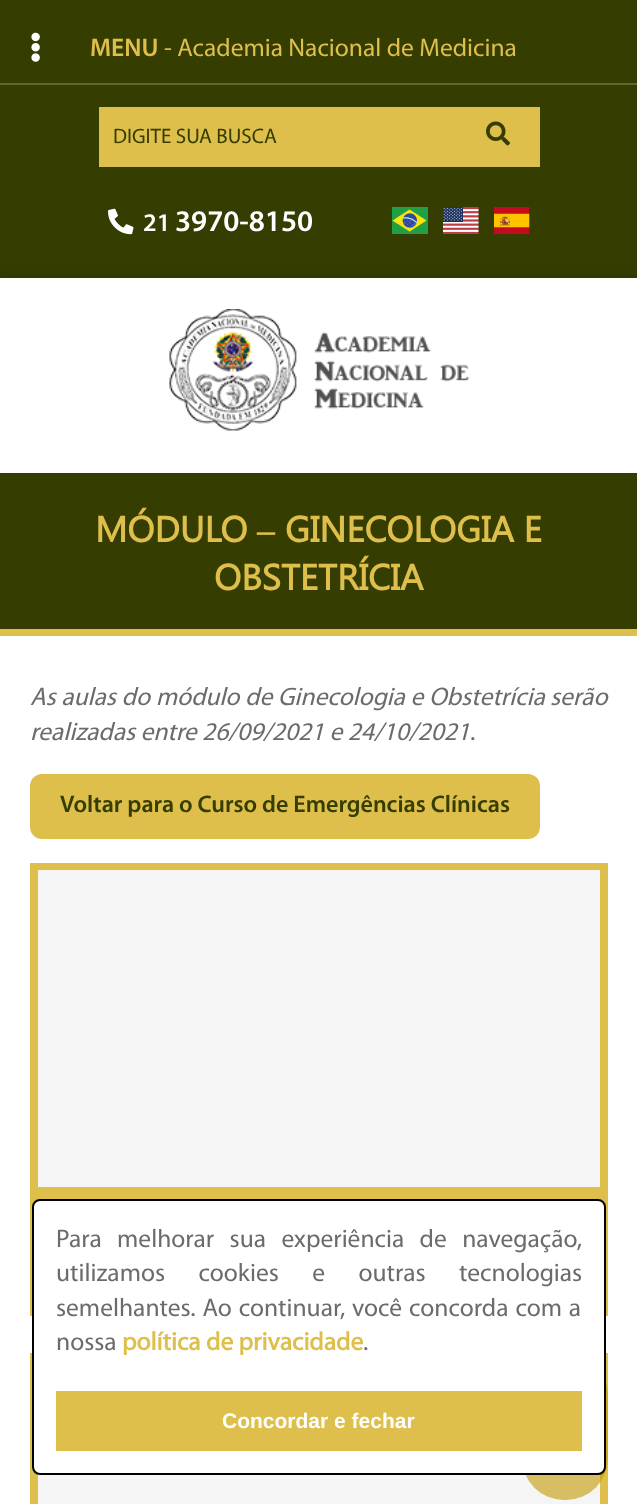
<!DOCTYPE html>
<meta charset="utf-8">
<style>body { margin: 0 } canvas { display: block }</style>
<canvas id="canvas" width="637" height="1504"></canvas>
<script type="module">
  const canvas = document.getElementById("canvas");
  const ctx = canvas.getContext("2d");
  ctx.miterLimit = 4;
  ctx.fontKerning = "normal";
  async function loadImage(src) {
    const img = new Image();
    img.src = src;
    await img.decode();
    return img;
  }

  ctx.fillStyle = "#ffffff";
  ctx.fillRect(0, 0, 637, 1504);
  ctx.fillStyle = "#353d01";
  ctx.fillRect(0, 0, 637, 83);
  ctx.fillStyle = "#5f6636";
  ctx.fillRect(0, 83, 637, 2);
  ctx.drawImage(await loadImage("img1.png"), 31, 32, 9, 30);
  ctx.font = "600 25.5px Myriad";
  ctx.fillStyle = "#debf4b";
  ctx.fillText("MENU", 90, 56);
  ctx.font = "25.5px Myriad";
  ctx.fillText("- Academia Nacional de Medicina", 164, 56);
  ctx.fillStyle = "#353d01";
  ctx.fillRect(0, 85, 637, 193);
  ctx.fillStyle = "#debf4b";
  ctx.fillRect(99, 107, 441, 60);
  ctx.font = "21px Myriad";
  ctx.fillStyle = "#363d01";
  ctx.fillText("DIGITE SUA BUSCA", 113, 143);
  ctx.drawImage(await loadImage("img2.png"), 486, 121, 24, 25);
  ctx.drawImage(await loadImage("img3.png"), 108, 208, 26, 27);
  ctx.font = "600 25.5px Myriad";
  ctx.fillStyle = "#ffffff";
  ctx.fillText("21", 143, 231);
  ctx.font = "600 30px Myriad";
  ctx.fillText("3970-8150", 175, 231);
  ctx.drawImage(await loadImage("img4.png"), 392, 207, 36, 27);
  ctx.drawImage(await loadImage("img5.png"), 443, 207, 36, 27);
  ctx.drawImage(await loadImage("img6.png"), 494, 207, 36, 27);
  ctx.fillStyle = "rgba(0, 0, 0, 0.15)";
  ctx.filter = "blur(7.5px)";
  ctx.beginPath();
  ctx.rect(0, 278, 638, 195);
  ctx.fill();
  ctx.filter = "none";
  ctx.fillStyle = "#ffffff";
  ctx.fillRect(0, 278, 637, 195);
  ctx.drawImage(await loadImage("img7.png"), 169, 309, 301, 122);
  ctx.fillStyle = "#363d01";
  ctx.fillRect(0, 473, 637, 156);
  ctx.fillStyle = "#debf4b";
  ctx.fillRect(0, 629, 637, 7);
  ctx.font = "bold 36px Segoe UI";
  ctx.fillText("MÓDULO", 95, 542);
  ctx.font = "bold 36px Liberation Serif";
  ctx.fillText("–", 257, 542);
  ctx.font = "bold 36px Segoe UI";
  ctx.fillText("GINECOLOGIA E", 285, 542);
  ctx.fillText("OBSTETRÍCIA", 214, 590);
  ctx.wordSpacing = "0.25px";
  ctx.font = "italic 25.5px Myriad";
  ctx.fillStyle = "#6b6b6b";
  ctx.fillText("As aulas do módulo de Ginecologia e Obstetrícia", 30, 705);
  ctx.wordSpacing = "0px";
  ctx.fillText("serão", 550, 705);
  ctx.fillText("realizadas entre 26/09/2021 e 24/10/2021", 30, 740);
  ctx.font = "25.5px Myriad";
  ctx.fillText(".", 470, 740);
  ctx.fillStyle = "#debf4b";
  ctx.beginPath();
  ctx.roundRect(30, 774, 510, 65, 12);
  ctx.fill();
  ctx.font = "600 24px Myriad";
  ctx.fillStyle = "#363d01";
  ctx.fillText("Voltar para o Curso de Emergências Clínicas", 60, 812);
  ctx.fillStyle = "#debf4b";
  ctx.fillRect(30, 863, 578, 453);
  ctx.fillStyle = "#f5f5f5";
  ctx.fillRect(38, 870, 562, 317);
  ctx.fillStyle = "#debf4b";
  ctx.fillRect(30, 1353, 578, 151);
  ctx.fillStyle = "#f5f5f5";
  ctx.fillRect(38, 1474, 562, 30);
  ctx.fillStyle = "rgba(195, 154, 0, 0.6)";
  ctx.beginPath();
  ctx.roundRect(522, 1353, 86, 74, [42, 42, 0, 0]);
  ctx.fill();
  ctx.beginPath();
  ctx.roundRect(522, 1427, 86, 73, [0, 0, 42, 42]);
  ctx.fill();
  ctx.fillStyle = "#ffffff";
  ctx.beginPath();
  ctx.roundRect(33, 1200, 572, 274, 7);
  ctx.fill();
  ctx.strokeStyle = "#000000";
  ctx.lineWidth = 2;
  ctx.stroke();
  ctx.wordSpacing = "10px";
  ctx.font = "25.5px Myriad";
  ctx.fillStyle = "#6b6b6b";
  ctx.fillText("Para melhorar sua experiência de navegação,", 56, 1247);
  ctx.wordSpacing = "28px";
  ctx.fillText("utilizamos cookies e outras tecnologias", 56, 1281);
  ctx.wordSpacing = "1.5px";
  ctx.fillText("semelhantes. Ao continuar, você concorda com a", 56, 1316);
  ctx.wordSpacing = "0px";
  ctx.fillText("nossa", 56, 1350);
  ctx.font = "bold 25.5px Myriad";
  ctx.fillStyle = "#debf4b";
  ctx.fillText("política de privacidade", 122, 1350);
  ctx.font = "25.5px Myriad";
  ctx.fillStyle = "#6b6b6b";
  ctx.fillText(".", 363, 1350);
  ctx.fillStyle = "#debf4b";
  ctx.fillRect(56, 1391, 526, 60);
  ctx.font = "bold 21px Liberation Sans";
  ctx.fillStyle = "#ffffff";
  ctx.fillText("Concordar e fechar", 222, 1428);
</script>
